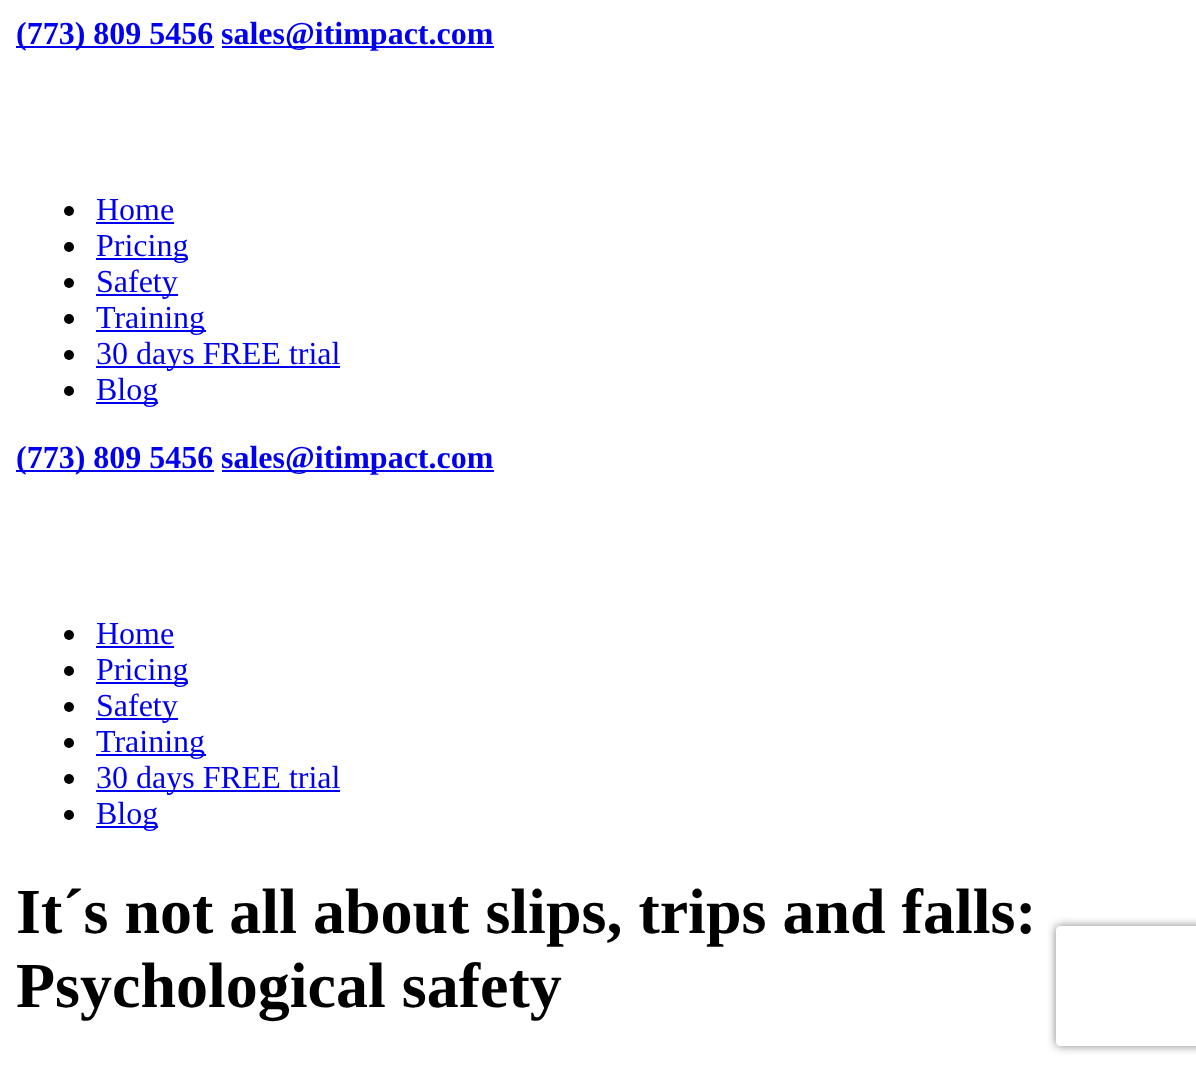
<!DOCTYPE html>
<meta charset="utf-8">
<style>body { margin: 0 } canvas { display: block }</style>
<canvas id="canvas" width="1196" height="1074"></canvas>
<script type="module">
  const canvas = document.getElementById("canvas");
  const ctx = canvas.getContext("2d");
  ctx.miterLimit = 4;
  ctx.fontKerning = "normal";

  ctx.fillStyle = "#ffffff";
  ctx.fillRect(0, 0, 1196, 1074);
  ctx.fillStyle = "#0000ee";
  ctx.fillRect(16, 46, 198, 2);
  ctx.font = "bold 32px Liberation Serif";
  ctx.fillText("(773) 809 5456", 16, 44);
  ctx.fillRect(222, 46, 272, 2);
  ctx.fillText("sales@itimpact.com", 221, 44);
  ctx.fillStyle = "#000000";
  ctx.beginPath();
  ctx.arc(69, 211, 5, 0, Math.PI * 2);
  ctx.fill();
  ctx.font = "32px Liberation Serif";
  ctx.fillStyle = "#0000ee";
  ctx.fillText("Home", 96, 220);
  ctx.fillRect(96, 222, 78, 2);
  ctx.fillStyle = "#000000";
  ctx.beginPath();
  ctx.arc(69, 247, 5, 0, Math.PI * 2);
  ctx.fill();
  ctx.fillStyle = "#0000ee";
  ctx.fillRect(96, 258, 92, 2);
  ctx.fillText("Pricing", 96, 256);
  ctx.fillStyle = "#000000";
  ctx.beginPath();
  ctx.arc(69, 283, 5, 0, Math.PI * 2);
  ctx.fill();
  ctx.fillStyle = "#0000ee";
  ctx.fillRect(96, 294, 82, 2);
  ctx.fillText("Safety", 96, 292);
  ctx.fillStyle = "#000000";
  ctx.beginPath();
  ctx.arc(69, 319, 5, 0, Math.PI * 2);
  ctx.fill();
  ctx.fillStyle = "#0000ee";
  ctx.fillRect(96, 330, 110, 2);
  ctx.fillText("Training", 96, 328);
  ctx.fillStyle = "#000000";
  ctx.beginPath();
  ctx.arc(69, 355, 5, 0, Math.PI * 2);
  ctx.fill();
  ctx.fillStyle = "#0000ee";
  ctx.fillRect(96, 366, 244, 2);
  ctx.fillText("30 days FREE trial", 96, 364);
  ctx.fillStyle = "#000000";
  ctx.beginPath();
  ctx.arc(69, 391, 5, 0, Math.PI * 2);
  ctx.fill();
  ctx.fillStyle = "#0000ee";
  ctx.fillRect(96, 402, 62, 2);
  ctx.fillText("Blog", 96, 400);
  ctx.fillRect(16, 470, 198, 2);
  ctx.font = "bold 32px Liberation Serif";
  ctx.fillText("(773) 809 5456", 16, 468);
  ctx.fillRect(222, 470, 272, 2);
  ctx.fillText("sales@itimpact.com", 221, 468);
  ctx.fillStyle = "#000000";
  ctx.beginPath();
  ctx.arc(69, 635, 5, 0, Math.PI * 2);
  ctx.fill();
  ctx.font = "32px Liberation Serif";
  ctx.fillStyle = "#0000ee";
  ctx.fillText("Home", 96, 644);
  ctx.fillRect(96, 646, 78, 2);
  ctx.fillStyle = "#000000";
  ctx.beginPath();
  ctx.arc(69, 671, 5, 0, Math.PI * 2);
  ctx.fill();
  ctx.fillStyle = "#0000ee";
  ctx.fillRect(96, 682, 92, 2);
  ctx.fillText("Pricing", 96, 680);
  ctx.fillStyle = "#000000";
  ctx.beginPath();
  ctx.arc(69, 707, 5, 0, Math.PI * 2);
  ctx.fill();
  ctx.fillStyle = "#0000ee";
  ctx.fillRect(96, 718, 82, 2);
  ctx.fillText("Safety", 96, 716);
  ctx.fillStyle = "#000000";
  ctx.beginPath();
  ctx.arc(69, 743, 5, 0, Math.PI * 2);
  ctx.fill();
  ctx.fillStyle = "#0000ee";
  ctx.fillRect(96, 754, 110, 2);
  ctx.fillText("Training", 96, 752);
  ctx.fillStyle = "#000000";
  ctx.beginPath();
  ctx.arc(69, 779, 5, 0, Math.PI * 2);
  ctx.fill();
  ctx.fillStyle = "#0000ee";
  ctx.fillRect(96, 790, 244, 2);
  ctx.fillText("30 days FREE trial", 96, 788);
  ctx.fillStyle = "#000000";
  ctx.beginPath();
  ctx.arc(69, 815, 5, 0, Math.PI * 2);
  ctx.fill();
  ctx.fillStyle = "#0000ee";
  ctx.fillRect(96, 826, 62, 2);
  ctx.fillText("Blog", 96, 824);
  ctx.font = "bold 64px Liberation Serif";
  ctx.fillStyle = "#000000";
  ctx.fillText("It´s not all about slips, trips and falls:", 16, 933);
  ctx.fillText("Psychological safety", 16, 1007);
  ctx.save();
  ctx.beginPath();
  ctx.moveTo(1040, 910);
  ctx.lineTo(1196, 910);
  ctx.lineTo(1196, 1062);
  ctx.lineTo(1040, 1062);
  ctx.closePath();
  ctx.moveTo(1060, 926);
  ctx.lineTo(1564, 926);
  ctx.bezierCurveTo(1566, 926, 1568, 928, 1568, 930);
  ctx.lineTo(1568, 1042);
  ctx.bezierCurveTo(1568, 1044, 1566, 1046, 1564, 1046);
  ctx.lineTo(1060, 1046);
  ctx.bezierCurveTo(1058, 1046, 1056, 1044, 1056, 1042);
  ctx.lineTo(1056, 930);
  ctx.bezierCurveTo(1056, 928, 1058, 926, 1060, 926);
  ctx.closePath();
  ctx.clip("evenodd");
  ctx.fillStyle = "#808080";
  ctx.filter = "blur(5px)";
  ctx.beginPath();
  ctx.roundRect(1056, 926, 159, 120, 4);
  ctx.fill();
  ctx.filter = "none";
  ctx.restore();
</script>
